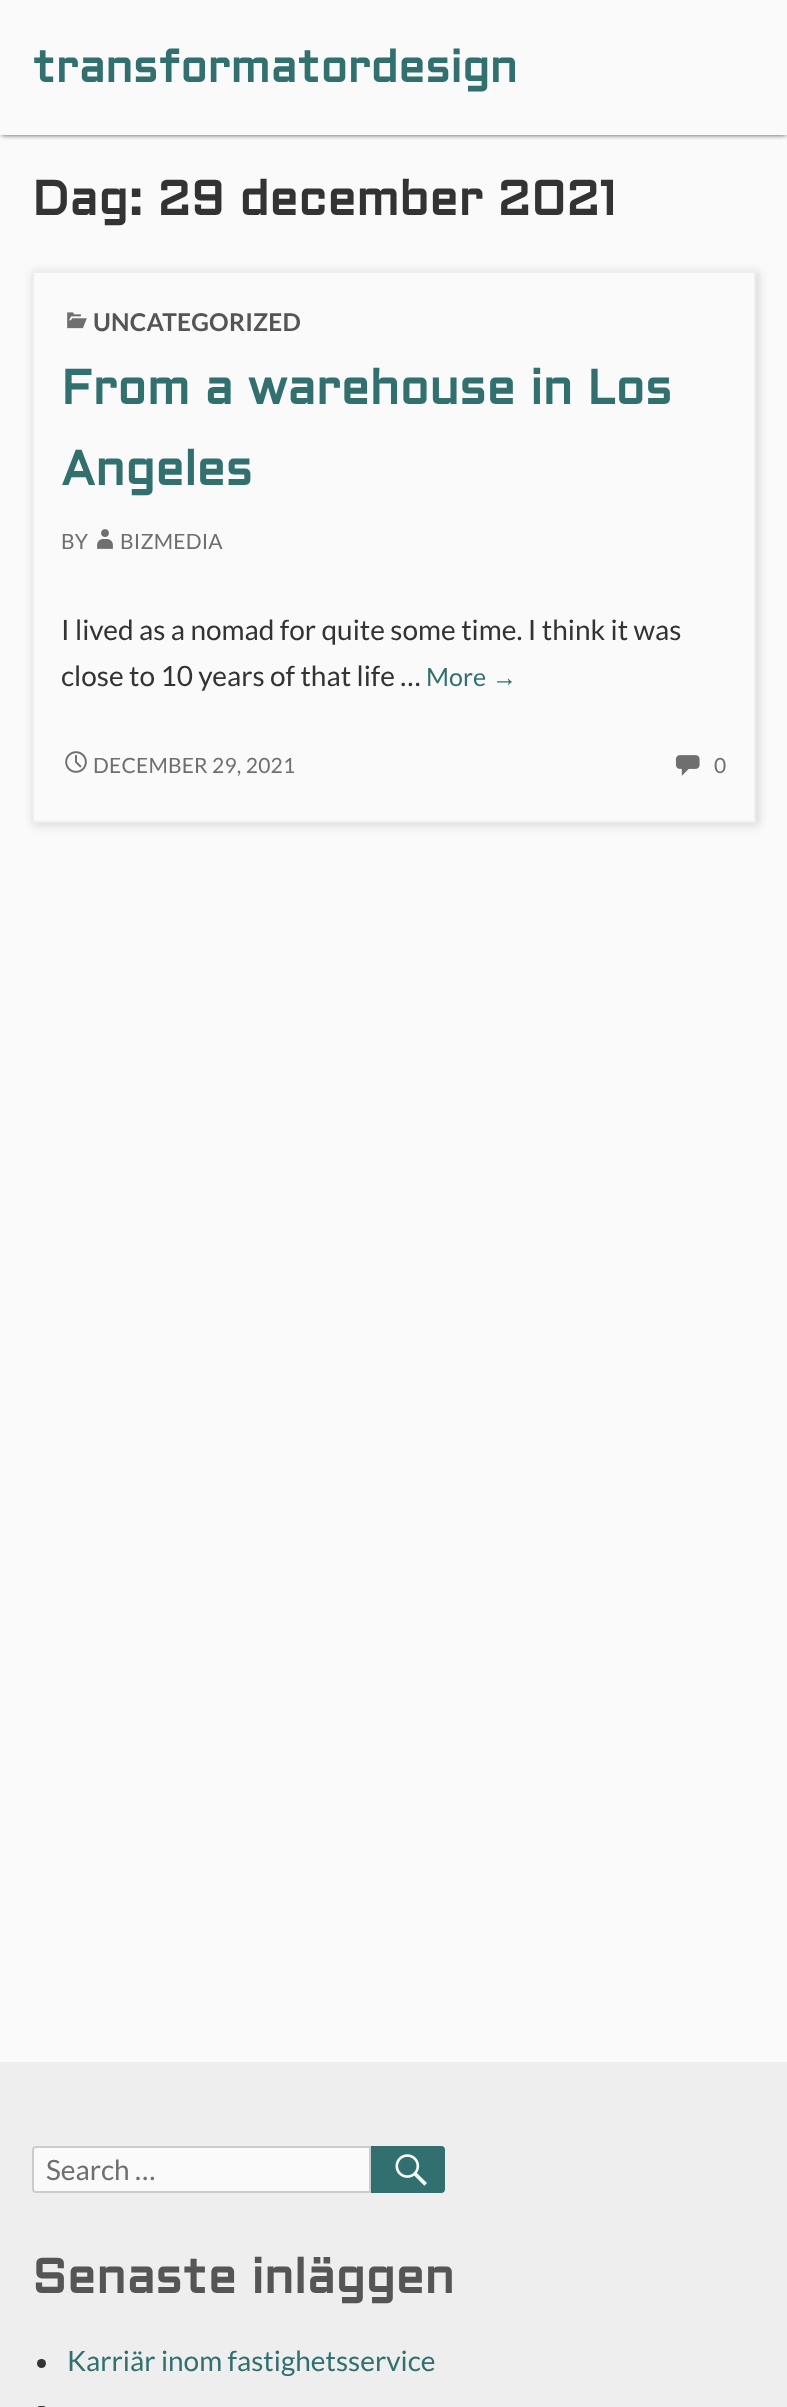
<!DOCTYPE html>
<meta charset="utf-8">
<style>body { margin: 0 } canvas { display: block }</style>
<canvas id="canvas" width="787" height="2407"></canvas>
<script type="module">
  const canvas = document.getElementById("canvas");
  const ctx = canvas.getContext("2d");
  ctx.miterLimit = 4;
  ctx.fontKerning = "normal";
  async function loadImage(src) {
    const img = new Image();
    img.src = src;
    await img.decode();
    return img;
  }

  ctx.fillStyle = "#fafafa";
  ctx.fillRect(0, 0, 787, 2407);
  ctx.fillStyle = "#3c4b44";
  ctx.filter = "blur(2.5px)";
  ctx.beginPath();
  ctx.rect(2, 4, 784, 131);
  ctx.fill();
  ctx.filter = "none";
  ctx.fillStyle = "#fafafa";
  ctx.fillRect(0, 0, 787, 135);
  ctx.font = "bold 44.75px Aldrich";
  ctx.fillStyle = "#327070";
  ctx.fillText("transformatordesign", 32, 82);
  ctx.font = "bold 48.4px Aldrich";
  ctx.fillStyle = "#333333";
  ctx.fillText("Dag: 29 december 2021", 32, 215);
  ctx.save();
  ctx.beginPath();
  ctx.moveTo(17, 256);
  ctx.lineTo(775, 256);
  ctx.lineTo(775, 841);
  ctx.lineTo(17, 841);
  ctx.closePath();
  ctx.moveTo(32, 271);
  ctx.lineTo(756, 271);
  ctx.lineTo(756, 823);
  ctx.lineTo(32, 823);
  ctx.closePath();
  ctx.clip("evenodd");
  ctx.fillStyle = "#dddddd";
  ctx.filter = "blur(4.5px)";
  ctx.beginPath();
  ctx.rect(32, 271, 728, 555);
  ctx.fill();
  ctx.filter = "none";
  ctx.restore();
  ctx.strokeStyle = "#eeeeee";
  ctx.lineWidth = 2;
  ctx.strokeRect(33, 272, 722, 550);
  ctx.drawImage(await loadImage("img1.png"), 67, 312, 20, 17);
  ctx.letterSpacing = "0.2px";
  ctx.font = "bold 24.5px Lato";
  ctx.fillStyle = "#555555";
  ctx.fillText("UNCATEGORIZED", 93, 331);
  ctx.letterSpacing = "0px";
  ctx.font = "bold 48.4px Aldrich";
  ctx.fillStyle = "#327070";
  ctx.fillText("From a warehouse in Los", 61, 404);
  ctx.fillText("Angeles", 61, 485);
  ctx.letterSpacing = "0.2px";
  ctx.font = "21px Lato";
  ctx.fillStyle = "#6f6f6f";
  ctx.fillText("BY", 61, 549);
  ctx.drawImage(await loadImage("img2.png"), 97, 529, 16, 20);
  ctx.fillText("BIZMEDIA", 120, 549);
  ctx.letterSpacing = "0px";
  ctx.font = "28px Lato";
  ctx.fillStyle = "#333333";
  ctx.fillText("I lived as a nomad for quite some time. I think it was", 61, 640);
  ctx.fillText("close to 10 years of that life …", 61, 686);
  ctx.font = "25px Lato";
  ctx.fillStyle = "#327070";
  ctx.fillText("More", 426, 686);
  ctx.font = "25px Liberation Sans";
  ctx.fillText("→", 492, 686);
  ctx.drawImage(await loadImage("img3.png"), 65, 751, 22, 22);
  ctx.letterSpacing = "0.2px";
  ctx.font = "21px Lato";
  ctx.fillStyle = "#6f6f6f";
  ctx.fillText("DECEMBER 29, 2021", 93, 773);
  ctx.drawImage(await loadImage("img4.png"), 675, 755, 25, 21);
  ctx.fillText("0", 714, 773);
  ctx.fillStyle = "#eeeeee";
  ctx.fillRect(0, 2062, 787, 345);
  ctx.fillStyle = "#fafafa";
  ctx.beginPath();
  ctx.roundRect(33, 2147, 337, 45, [3, 0, 0, 3]);
  ctx.fill();
  ctx.strokeStyle = "#cccccc";
  ctx.stroke();
  ctx.letterSpacing = "0px";
  ctx.font = "28px Lato";
  ctx.fillStyle = "#6f6f6f";
  ctx.fillText("Search …", 46, 2180);
  ctx.fillStyle = "#327070";
  ctx.beginPath();
  ctx.roundRect(371, 2146, 74, 47, [0, 4, 4, 0]);
  ctx.fill();
  ctx.drawImage(await loadImage("img5.png"), 395, 2154, 32, 32);
  ctx.font = "bold 48.4px Aldrich";
  ctx.fillStyle = "#555555";
  ctx.fillText("Senaste inläggen", 32, 2293);
  ctx.fillStyle = "#333333";
  ctx.beginPath();
  ctx.arc(41.5, 2363.5, 4.5, 0, Math.PI * 2);
  ctx.fill();
  ctx.font = "28px Lato";
  ctx.fillStyle = "#327070";
  ctx.fillText("Karriär inom fastighetsservice", 67, 2371);
  ctx.fillStyle = "#333333";
  ctx.beginPath();
  ctx.roundRect(37, 2406, 9, 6, 4.5);
  ctx.fill();
</script>
